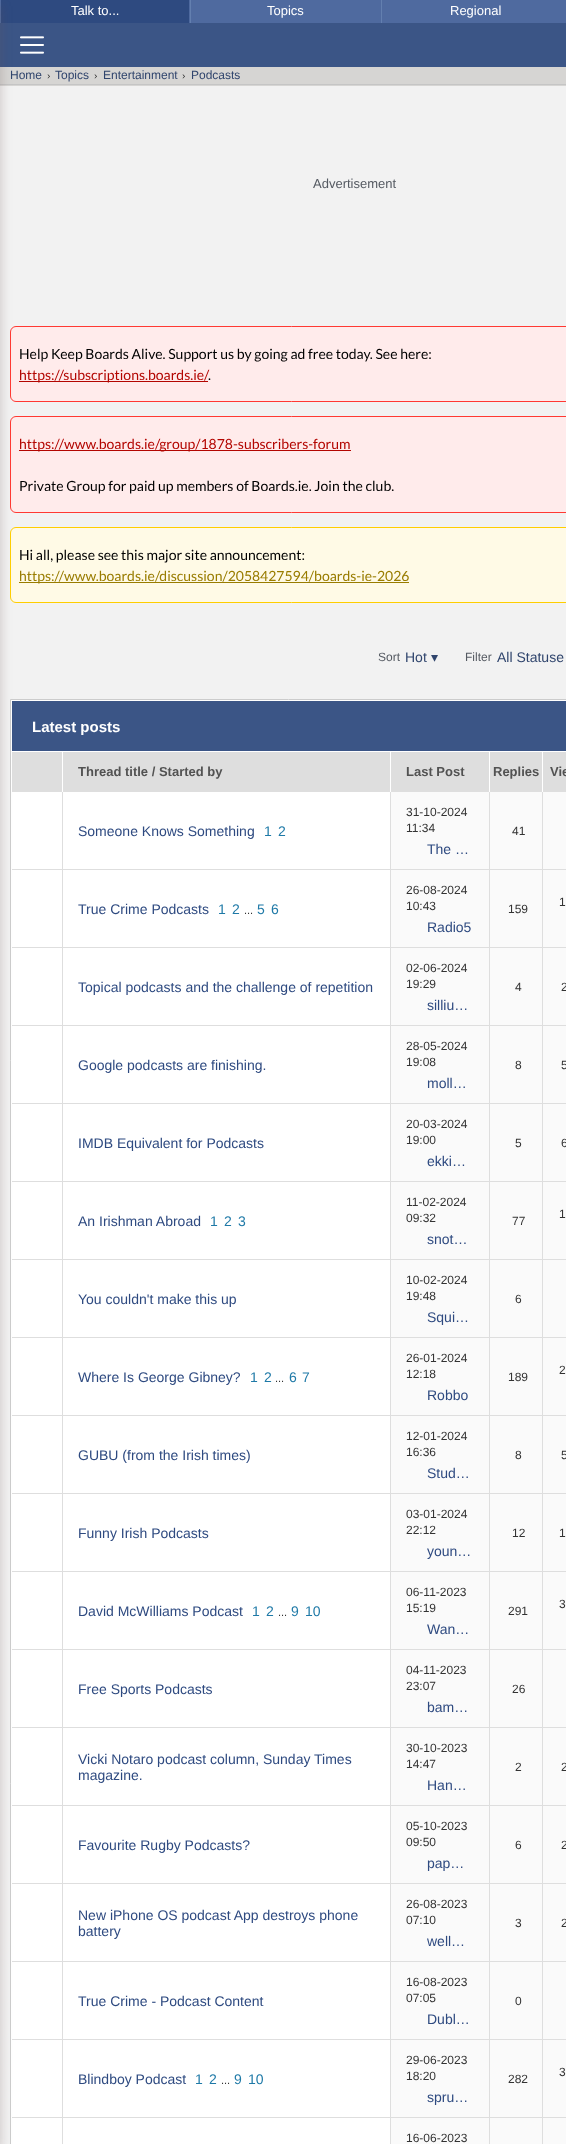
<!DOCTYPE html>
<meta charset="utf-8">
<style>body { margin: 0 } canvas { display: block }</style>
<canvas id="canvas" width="566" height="2144"></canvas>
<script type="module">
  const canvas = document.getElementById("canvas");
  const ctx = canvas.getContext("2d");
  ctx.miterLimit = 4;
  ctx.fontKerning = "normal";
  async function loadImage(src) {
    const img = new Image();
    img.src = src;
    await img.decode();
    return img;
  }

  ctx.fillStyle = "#f2f2f2";
  ctx.fillRect(0, 0, 566, 2144);
  ctx.fillStyle = "#4f6a9f";
  ctx.fillRect(0, 0, 190, 23);
  ctx.fillStyle = "#2e4a80";
  ctx.fillRect(1, 0, 188, 23);
  ctx.fillStyle = "#3b5586";
  ctx.fillRect(0, 23, 566, 44);
  ctx.fillStyle = "#d6d5d3";
  ctx.fillRect(0, 67, 566, 19);
  ctx.fillStyle = "#c5c5c5";
  ctx.fillRect(0, 84, 566, 1);
  ctx.fillStyle = "#ffebeb";
  ctx.beginPath();
  ctx.roundRect(10.5, 326.5, 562, 75, 5.5);
  ctx.fill();
  ctx.strokeStyle = "#ff3933";
  ctx.stroke();
  ctx.beginPath();
  ctx.roundRect(10.5, 416.5, 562, 96, 5.5);
  ctx.fill();
  ctx.stroke();
  ctx.fillStyle = "#fffae6";
  ctx.beginPath();
  ctx.roundRect(10.5, 527.5, 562, 75, 5.5);
  ctx.fill();
  ctx.strokeStyle = "#ffce00";
  ctx.stroke();
  ctx.fillStyle = "#ffffff";
  ctx.beginPath();
  ctx.rect(10.5, 699.5, 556, 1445);
  ctx.fill();
  ctx.strokeStyle = "#cccccc";
  ctx.stroke();
  ctx.fillStyle = "#3b5586";
  ctx.fillRect(12, 701, 554, 50);
  ctx.fillStyle = "#dedede";
  ctx.fillRect(12, 752, 50, 40);
  ctx.fillRect(542, 869, 24, 1);
  ctx.fillRect(542, 947, 24, 1);
  ctx.fillRect(542, 1025, 24, 1);
  ctx.fillRect(542, 1103, 24, 1);
  ctx.fillRect(542, 1181, 24, 1);
  ctx.fillRect(542, 1259, 24, 1);
  ctx.fillRect(542, 1337, 24, 1);
  ctx.fillRect(542, 1415, 24, 1);
  ctx.fillRect(542, 1493, 24, 1);
  ctx.fillRect(542, 1571, 24, 1);
  ctx.fillRect(542, 1649, 24, 1);
  ctx.fillRect(542, 1727, 24, 1);
  ctx.fillRect(542, 1805, 24, 1);
  ctx.fillRect(542, 1883, 24, 1);
  ctx.fillRect(542, 1961, 24, 1);
  ctx.fillRect(542, 2039, 24, 1);
  ctx.fillRect(542, 2117, 24, 1);
  ctx.fillRect(542, 2117, 1, 27);
  ctx.fillRect(489, 2117, 54, 1);
  ctx.fillRect(542, 2039, 1, 79);
  ctx.fillRect(489, 2039, 54, 1);
  ctx.fillRect(542, 1961, 1, 79);
  ctx.fillRect(489, 1961, 54, 1);
  ctx.fillRect(542, 1883, 1, 79);
  ctx.fillRect(489, 1883, 54, 1);
  ctx.fillRect(542, 1805, 1, 79);
  ctx.fillRect(489, 1805, 54, 1);
  ctx.fillRect(542, 1727, 1, 79);
  ctx.fillRect(489, 1727, 54, 1);
  ctx.fillRect(542, 1649, 1, 79);
  ctx.fillRect(489, 1649, 54, 1);
  ctx.fillRect(542, 1571, 1, 79);
  ctx.fillRect(489, 1571, 54, 1);
  ctx.fillRect(542, 1493, 1, 79);
  ctx.fillRect(489, 1493, 54, 1);
  ctx.fillRect(542, 1415, 1, 79);
  ctx.fillRect(489, 1415, 54, 1);
  ctx.fillRect(542, 1337, 1, 79);
  ctx.fillRect(489, 1337, 54, 1);
  ctx.fillRect(542, 1259, 1, 79);
  ctx.fillRect(489, 1259, 54, 1);
  ctx.fillRect(542, 1181, 1, 79);
  ctx.fillRect(489, 1181, 54, 1);
  ctx.fillRect(542, 1103, 1, 79);
  ctx.fillRect(489, 1103, 54, 1);
  ctx.fillRect(542, 1025, 1, 79);
  ctx.fillRect(489, 1025, 54, 1);
  ctx.fillRect(542, 947, 1, 79);
  ctx.fillRect(489, 947, 54, 1);
  ctx.fillRect(542, 869, 1, 79);
  ctx.fillRect(489, 869, 54, 1);
  ctx.fillRect(489, 2117, 1, 27);
  ctx.fillRect(390, 2117, 100, 1);
  ctx.fillRect(489, 2039, 1, 79);
  ctx.fillRect(390, 2039, 100, 1);
  ctx.fillRect(489, 1961, 1, 79);
  ctx.fillRect(390, 1961, 100, 1);
  ctx.fillRect(489, 1883, 1, 79);
  ctx.fillRect(390, 1883, 100, 1);
  ctx.fillRect(489, 1805, 1, 79);
  ctx.fillRect(390, 1805, 100, 1);
  ctx.fillRect(489, 1727, 1, 79);
  ctx.fillRect(390, 1727, 100, 1);
  ctx.fillRect(489, 1649, 1, 79);
  ctx.fillRect(390, 1649, 100, 1);
  ctx.fillRect(489, 1571, 1, 79);
  ctx.fillRect(390, 1571, 100, 1);
  ctx.fillRect(489, 1493, 1, 79);
  ctx.fillRect(390, 1493, 100, 1);
  ctx.fillRect(489, 1415, 1, 79);
  ctx.fillRect(390, 1415, 100, 1);
  ctx.fillRect(489, 1337, 1, 79);
  ctx.fillRect(390, 1337, 100, 1);
  ctx.fillRect(489, 1259, 1, 79);
  ctx.fillRect(390, 1259, 100, 1);
  ctx.fillRect(489, 1181, 1, 79);
  ctx.fillRect(390, 1181, 100, 1);
  ctx.fillRect(489, 1103, 1, 79);
  ctx.fillRect(390, 1103, 100, 1);
  ctx.fillRect(489, 1025, 1, 79);
  ctx.fillRect(390, 1025, 100, 1);
  ctx.fillRect(489, 947, 1, 79);
  ctx.fillRect(390, 947, 100, 1);
  ctx.fillRect(489, 869, 1, 79);
  ctx.fillRect(390, 869, 100, 1);
  ctx.fillRect(390, 2117, 1, 27);
  ctx.fillRect(62, 2117, 329, 1);
  ctx.fillRect(390, 2039, 1, 79);
  ctx.fillRect(62, 2039, 329, 1);
  ctx.fillRect(390, 1961, 1, 79);
  ctx.fillRect(62, 1961, 329, 1);
  ctx.fillRect(390, 1883, 1, 79);
  ctx.fillRect(62, 1883, 329, 1);
  ctx.fillRect(390, 1805, 1, 79);
  ctx.fillRect(62, 1805, 329, 1);
  ctx.fillRect(390, 1727, 1, 79);
  ctx.fillRect(62, 1727, 329, 1);
  ctx.fillRect(390, 1649, 1, 79);
  ctx.fillRect(62, 1649, 329, 1);
  ctx.fillRect(390, 1571, 1, 79);
  ctx.fillRect(62, 1571, 329, 1);
  ctx.fillRect(390, 1493, 1, 79);
  ctx.fillRect(62, 1493, 329, 1);
  ctx.fillRect(390, 1415, 1, 79);
  ctx.fillRect(62, 1415, 329, 1);
  ctx.fillRect(390, 1337, 1, 79);
  ctx.fillRect(62, 1337, 329, 1);
  ctx.fillRect(390, 1259, 1, 79);
  ctx.fillRect(62, 1259, 329, 1);
  ctx.fillRect(390, 1181, 1, 79);
  ctx.fillRect(62, 1181, 329, 1);
  ctx.fillRect(390, 1103, 1, 79);
  ctx.fillRect(62, 1103, 329, 1);
  ctx.fillRect(390, 1025, 1, 79);
  ctx.fillRect(62, 1025, 329, 1);
  ctx.fillRect(390, 947, 1, 79);
  ctx.fillRect(62, 947, 329, 1);
  ctx.fillRect(390, 869, 1, 79);
  ctx.fillRect(62, 869, 329, 1);
  ctx.fillRect(62, 2117, 1, 27);
  ctx.fillRect(12, 2117, 51, 1);
  ctx.fillRect(62, 2039, 1, 79);
  ctx.fillRect(12, 2039, 51, 1);
  ctx.fillRect(62, 1961, 1, 79);
  ctx.fillRect(12, 1961, 51, 1);
  ctx.fillRect(62, 1883, 1, 79);
  ctx.fillRect(12, 1883, 51, 1);
  ctx.fillRect(62, 1805, 1, 79);
  ctx.fillRect(12, 1805, 51, 1);
  ctx.fillRect(62, 1727, 1, 79);
  ctx.fillRect(12, 1727, 51, 1);
  ctx.fillRect(62, 1649, 1, 79);
  ctx.fillRect(12, 1649, 51, 1);
  ctx.fillRect(62, 1571, 1, 79);
  ctx.fillRect(12, 1571, 51, 1);
  ctx.fillRect(62, 1493, 1, 79);
  ctx.fillRect(12, 1493, 51, 1);
  ctx.fillRect(62, 1415, 1, 79);
  ctx.fillRect(12, 1415, 51, 1);
  ctx.fillRect(62, 1337, 1, 79);
  ctx.fillRect(12, 1337, 51, 1);
  ctx.fillRect(62, 1259, 1, 79);
  ctx.fillRect(12, 1259, 51, 1);
  ctx.fillRect(62, 1181, 1, 79);
  ctx.fillRect(12, 1181, 51, 1);
  ctx.fillRect(62, 1103, 1, 79);
  ctx.fillRect(12, 1103, 51, 1);
  ctx.fillRect(62, 1025, 1, 79);
  ctx.fillRect(12, 1025, 51, 1);
  ctx.fillRect(62, 947, 1, 79);
  ctx.fillRect(12, 947, 51, 1);
  ctx.fillRect(62, 869, 1, 79);
  ctx.fillRect(12, 869, 51, 1);
  ctx.fillStyle = "rgba(107, 82, 82, 0.3)";
  ctx.filter = "blur(6px)";
  ctx.beginPath();
  ctx.rect(-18, 6, 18, 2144);
  ctx.fill();
  ctx.filter = "none";
  ctx.font = "13px Liberation Sans";
  ctx.fillStyle = "#ffffff";
  ctx.fillText("Talk to...", 71, 15);
  ctx.fillStyle = "#4f6a9f";
  ctx.fillRect(191, 0, 190, 23);
  ctx.fillStyle = "#637faf";
  ctx.fillRect(190, 0, 1, 23);
  ctx.fillStyle = "#ffffff";
  ctx.fillText("Topics", 267, 15);
  ctx.fillStyle = "#4f6a9f";
  ctx.fillRect(382, 0, 184, 23);
  ctx.fillStyle = "#637faf";
  ctx.fillRect(381, 0, 1, 23);
  ctx.fillStyle = "#ffffff";
  ctx.fillText("Regional", 450, 15);
  ctx.drawImage(await loadImage("img1.png"), 20, 36, 24, 18);
  ctx.font = "12px Liberation Sans";
  ctx.fillStyle = "#30456d";
  ctx.fillText("Home", 10, 79);
  ctx.font = "10px Liberation Sans";
  ctx.fillStyle = "#282828";
  ctx.fillText("›", 47, 79);
  ctx.font = "12px Liberation Sans";
  ctx.fillStyle = "#30456d";
  ctx.fillText("Topics", 55, 79);
  ctx.font = "10px Liberation Sans";
  ctx.fillStyle = "#282828";
  ctx.fillText("›", 94, 79);
  ctx.font = "12px Liberation Sans";
  ctx.fillStyle = "#30456d";
  ctx.fillText("Entertainment", 103, 79);
  ctx.font = "10px Liberation Sans";
  ctx.fillStyle = "#282828";
  ctx.fillText("›", 182, 79);
  ctx.font = "12px Liberation Sans";
  ctx.fillStyle = "#30456d";
  ctx.fillText("Podcasts", 191, 79);
  ctx.font = "13px Liberation Sans";
  ctx.fillStyle = "#555a62";
  ctx.fillText("Advertisement", 313, 188);
  ctx.font = "14px Lato";
  ctx.fillStyle = "#000000";
  ctx.fillText("Help Keep Boards Alive. Support us by going ad free today. See here:", 19, 359);
  ctx.fillStyle = "#b30500";
  ctx.fillRect(19, 381, 189, 1);
  ctx.fillText("https://subscriptions.boards.ie/", 19, 380);
  ctx.fillStyle = "#000000";
  ctx.fillText(".", 208, 380);
  ctx.fillStyle = "#b30500";
  ctx.fillRect(19, 450, 332, 1);
  ctx.fillText("https://www.boards.ie/group/1878-subscribers-forum", 19, 449);
  ctx.fillStyle = "#000000";
  ctx.fillText("Private Group for paid up members of Boards.ie. Join the club.", 19, 491);
  ctx.fillText("Hi all, please see this major site announcement:", 19, 560);
  ctx.fillStyle = "#997c00";
  ctx.fillRect(19, 582, 390, 1);
  ctx.fillText("https://www.boards.ie/discussion/2058427594/boards-ie-2026", 19, 581);
  ctx.font = "12px Liberation Sans";
  ctx.fillStyle = "#555a62";
  ctx.fillText("Sort", 378, 661);
  ctx.font = "14px Liberation Sans";
  ctx.fillStyle = "#30456d";
  ctx.fillText("Hot", 405, 662);
  ctx.font = "14px DejaVu Sans";
  ctx.fillText("▾", 431, 662);
  ctx.font = "12px Liberation Sans";
  ctx.fillStyle = "#555a62";
  ctx.fillText("Filter", 465, 661);
  ctx.font = "14px Liberation Sans";
  ctx.fillStyle = "#30456d";
  ctx.fillText("All Statuse", 497, 662);
  ctx.font = "bold 15px Liberation Sans";
  ctx.fillStyle = "#ffffff";
  ctx.fillText("Latest posts", 32, 732);
  ctx.fillStyle = "#dedede";
  ctx.fillRect(63, 752, 327, 40);
  ctx.fillRect(62, 791, 1, 79);
  ctx.fillStyle = "#ffffff";
  ctx.fillRect(62, 791, 1, 1);
  ctx.font = "bold 13px Liberation Sans";
  ctx.fillStyle = "#525252";
  ctx.fillText("Thread title / Started by", 78, 776);
  ctx.fillStyle = "#dedede";
  ctx.fillRect(391, 752, 98, 40);
  ctx.fillRect(390, 791, 1, 79);
  ctx.fillStyle = "#ffffff";
  ctx.fillRect(390, 791, 1, 1);
  ctx.fillStyle = "#525252";
  ctx.fillText("Last Post", 406, 776);
  ctx.fillStyle = "#dedede";
  ctx.fillRect(490, 752, 52, 40);
  ctx.fillRect(489, 791, 1, 79);
  ctx.fillStyle = "#ffffff";
  ctx.fillRect(489, 791, 1, 1);
  ctx.fillStyle = "#525252";
  ctx.fillText("Replies", 493, 776);
  ctx.fillStyle = "#dedede";
  ctx.fillRect(543, 752, 23, 40);
  ctx.fillRect(542, 791, 1, 79);
  ctx.fillStyle = "#ffffff";
  ctx.fillRect(542, 791, 1, 1);
  ctx.fillStyle = "#525252";
  ctx.fillText("Vie", 550, 776);
  ctx.font = "14px Liberation Sans";
  ctx.fillStyle = "#2e4a80";
  ctx.fillText("Someone Knows Something", 78, 836);
  ctx.fillStyle = "#1e79a7";
  ctx.fillText("1", 264, 836);
  ctx.fillText("2", 278, 836);
  ctx.fillStyle = "#fafafa";
  ctx.fillRect(391, 792, 98, 77);
  ctx.font = "12px Liberation Sans";
  ctx.fillStyle = "#333333";
  ctx.fillText("31-10-2024", 406, 816);
  ctx.fillText("11:34", 406, 832);
  ctx.font = "14px Liberation Sans";
  ctx.fillStyle = "#2e4a80";
  ctx.fillText("The …", 427, 854);
  ctx.fillStyle = "#fafafa";
  ctx.fillRect(490, 792, 52, 77);
  ctx.font = "12px Liberation Sans";
  ctx.fillStyle = "#333333";
  ctx.fillText("41", 512, 835);
  ctx.fillStyle = "#fafafa";
  ctx.fillRect(543, 792, 23, 77);
  ctx.fillRect(391, 870, 98, 77);
  ctx.fillStyle = "#333333";
  ctx.fillText("26-08-2024", 406, 894);
  ctx.fillText("10:43", 406, 910);
  ctx.font = "14px Liberation Sans";
  ctx.fillStyle = "#2e4a80";
  ctx.fillText("Radio5", 427, 932);
  ctx.fillStyle = "#fafafa";
  ctx.fillRect(543, 870, 23, 77);
  ctx.font = "12px Liberation Sans";
  ctx.fillStyle = "#333333";
  ctx.fillText("1", 559, 906);
  ctx.font = "14px Liberation Sans";
  ctx.fillStyle = "#2e4a80";
  ctx.fillText("True Crime Podcasts", 78, 914);
  ctx.fillStyle = "#1e79a7";
  ctx.fillText("1", 218, 914);
  ctx.fillText("2", 232, 914);
  ctx.font = "11px Liberation Sans";
  ctx.fillStyle = "#333333";
  ctx.fillText("...", 244, 914);
  ctx.font = "14px Liberation Sans";
  ctx.fillStyle = "#1e79a7";
  ctx.fillText("5", 257, 914);
  ctx.fillText("6", 271, 914);
  ctx.fillStyle = "#fafafa";
  ctx.fillRect(490, 870, 52, 77);
  ctx.font = "12px Liberation Sans";
  ctx.fillStyle = "#333333";
  ctx.fillText("159", 508, 913);
  ctx.font = "14px Liberation Sans";
  ctx.fillStyle = "#2e4a80";
  ctx.fillText("Topical podcasts and the challenge of repetition", 78, 992);
  ctx.fillStyle = "#fafafa";
  ctx.fillRect(391, 948, 98, 77);
  ctx.font = "12px Liberation Sans";
  ctx.fillStyle = "#333333";
  ctx.fillText("02-06-2024", 406, 972);
  ctx.fillText("19:29", 406, 988);
  ctx.font = "14px Liberation Sans";
  ctx.fillStyle = "#2e4a80";
  ctx.fillText("silliu…", 427, 1010);
  ctx.fillStyle = "#fafafa";
  ctx.fillRect(490, 948, 52, 77);
  ctx.font = "12px Liberation Sans";
  ctx.fillStyle = "#333333";
  ctx.fillText("4", 515, 991);
  ctx.fillStyle = "#fafafa";
  ctx.fillRect(543, 948, 23, 77);
  ctx.fillStyle = "#333333";
  ctx.fillText("2", 561, 991);
  ctx.font = "14px Liberation Sans";
  ctx.fillStyle = "#2e4a80";
  ctx.fillText("Google podcasts are finishing.", 78, 1070);
  ctx.fillStyle = "#fafafa";
  ctx.fillRect(391, 1026, 98, 77);
  ctx.font = "12px Liberation Sans";
  ctx.fillStyle = "#333333";
  ctx.fillText("28-05-2024", 406, 1050);
  ctx.fillText("19:08", 406, 1066);
  ctx.font = "14px Liberation Sans";
  ctx.fillStyle = "#2e4a80";
  ctx.fillText("moll…", 427, 1088);
  ctx.fillStyle = "#fafafa";
  ctx.fillRect(490, 1026, 52, 77);
  ctx.font = "12px Liberation Sans";
  ctx.fillStyle = "#333333";
  ctx.fillText("8", 515, 1069);
  ctx.fillStyle = "#fafafa";
  ctx.fillRect(543, 1026, 23, 77);
  ctx.fillStyle = "#333333";
  ctx.fillText("5", 561, 1069);
  ctx.font = "14px Liberation Sans";
  ctx.fillStyle = "#2e4a80";
  ctx.fillText("IMDB Equivalent for Podcasts", 78, 1148);
  ctx.fillStyle = "#fafafa";
  ctx.fillRect(391, 1104, 98, 77);
  ctx.font = "12px Liberation Sans";
  ctx.fillStyle = "#333333";
  ctx.fillText("20-03-2024", 406, 1128);
  ctx.fillText("19:00", 406, 1144);
  ctx.font = "14px Liberation Sans";
  ctx.fillStyle = "#2e4a80";
  ctx.fillText("ekki…", 427, 1166);
  ctx.fillStyle = "#fafafa";
  ctx.fillRect(490, 1104, 52, 77);
  ctx.font = "12px Liberation Sans";
  ctx.fillStyle = "#333333";
  ctx.fillText("5", 515, 1147);
  ctx.fillStyle = "#fafafa";
  ctx.fillRect(543, 1104, 23, 77);
  ctx.fillStyle = "#333333";
  ctx.fillText("6", 561, 1147);
  ctx.fillStyle = "#fafafa";
  ctx.fillRect(391, 1182, 98, 77);
  ctx.fillStyle = "#333333";
  ctx.fillText("11-02-2024", 406, 1206);
  ctx.fillText("09:32", 406, 1222);
  ctx.font = "14px Liberation Sans";
  ctx.fillStyle = "#2e4a80";
  ctx.fillText("snot…", 427, 1244);
  ctx.fillStyle = "#fafafa";
  ctx.fillRect(543, 1182, 23, 77);
  ctx.font = "12px Liberation Sans";
  ctx.fillStyle = "#333333";
  ctx.fillText("1", 559, 1218);
  ctx.font = "14px Liberation Sans";
  ctx.fillStyle = "#2e4a80";
  ctx.fillText("An Irishman Abroad", 78, 1226);
  ctx.fillStyle = "#1e79a7";
  ctx.fillText("1", 210, 1226);
  ctx.fillText("2", 224, 1226);
  ctx.fillText("3", 238, 1226);
  ctx.fillStyle = "#fafafa";
  ctx.fillRect(490, 1182, 52, 77);
  ctx.font = "12px Liberation Sans";
  ctx.fillStyle = "#333333";
  ctx.fillText("77", 512, 1225);
  ctx.font = "14px Liberation Sans";
  ctx.fillStyle = "#2e4a80";
  ctx.fillText("You couldn't make this up", 78, 1304);
  ctx.fillStyle = "#fafafa";
  ctx.fillRect(391, 1260, 98, 77);
  ctx.font = "12px Liberation Sans";
  ctx.fillStyle = "#333333";
  ctx.fillText("10-02-2024", 406, 1284);
  ctx.fillText("19:48", 406, 1300);
  ctx.font = "14px Liberation Sans";
  ctx.fillStyle = "#2e4a80";
  ctx.fillText("Squi…", 427, 1322);
  ctx.fillStyle = "#fafafa";
  ctx.fillRect(490, 1260, 52, 77);
  ctx.font = "12px Liberation Sans";
  ctx.fillStyle = "#333333";
  ctx.fillText("6", 515, 1303);
  ctx.fillStyle = "#fafafa";
  ctx.fillRect(543, 1260, 23, 77);
  ctx.fillRect(391, 1338, 98, 77);
  ctx.fillStyle = "#333333";
  ctx.fillText("26-01-2024", 406, 1362);
  ctx.fillText("12:18", 406, 1378);
  ctx.font = "14px Liberation Sans";
  ctx.fillStyle = "#2e4a80";
  ctx.fillText("Robbo", 427, 1400);
  ctx.fillStyle = "#fafafa";
  ctx.fillRect(543, 1338, 23, 77);
  ctx.font = "12px Liberation Sans";
  ctx.fillStyle = "#333333";
  ctx.fillText("2", 559, 1374);
  ctx.font = "14px Liberation Sans";
  ctx.fillStyle = "#2e4a80";
  ctx.fillText("Where Is George Gibney?", 78, 1382);
  ctx.fillStyle = "#1e79a7";
  ctx.fillText("1", 250, 1382);
  ctx.fillText("2", 264, 1382);
  ctx.font = "11px Liberation Sans";
  ctx.fillStyle = "#333333";
  ctx.fillText("...", 275, 1382);
  ctx.font = "14px Liberation Sans";
  ctx.fillStyle = "#1e79a7";
  ctx.fillText("6", 289, 1382);
  ctx.fillText("7", 302, 1382);
  ctx.fillStyle = "#fafafa";
  ctx.fillRect(490, 1338, 52, 77);
  ctx.font = "12px Liberation Sans";
  ctx.fillStyle = "#333333";
  ctx.fillText("189", 508, 1381);
  ctx.font = "14px Liberation Sans";
  ctx.fillStyle = "#2e4a80";
  ctx.fillText("GUBU (from the Irish times)", 78, 1460);
  ctx.fillStyle = "#fafafa";
  ctx.fillRect(391, 1416, 98, 77);
  ctx.font = "12px Liberation Sans";
  ctx.fillStyle = "#333333";
  ctx.fillText("12-01-2024", 406, 1440);
  ctx.fillText("16:36", 406, 1456);
  ctx.font = "14px Liberation Sans";
  ctx.fillStyle = "#2e4a80";
  ctx.fillText("Stud…", 427, 1478);
  ctx.fillStyle = "#fafafa";
  ctx.fillRect(490, 1416, 52, 77);
  ctx.font = "12px Liberation Sans";
  ctx.fillStyle = "#333333";
  ctx.fillText("8", 515, 1459);
  ctx.fillStyle = "#fafafa";
  ctx.fillRect(543, 1416, 23, 77);
  ctx.fillStyle = "#333333";
  ctx.fillText("5", 561, 1459);
  ctx.font = "14px Liberation Sans";
  ctx.fillStyle = "#2e4a80";
  ctx.fillText("Funny Irish Podcasts", 78, 1538);
  ctx.fillStyle = "#fafafa";
  ctx.fillRect(391, 1494, 98, 77);
  ctx.font = "12px Liberation Sans";
  ctx.fillStyle = "#333333";
  ctx.fillText("03-01-2024", 406, 1518);
  ctx.fillText("22:12", 406, 1534);
  ctx.font = "14px Liberation Sans";
  ctx.fillStyle = "#2e4a80";
  ctx.fillText("youn…", 427, 1556);
  ctx.fillStyle = "#fafafa";
  ctx.fillRect(490, 1494, 52, 77);
  ctx.font = "12px Liberation Sans";
  ctx.fillStyle = "#333333";
  ctx.fillText("12", 512, 1537);
  ctx.fillStyle = "#fafafa";
  ctx.fillRect(543, 1494, 23, 77);
  ctx.fillStyle = "#333333";
  ctx.fillText("1", 559, 1537);
  ctx.fillStyle = "#fafafa";
  ctx.fillRect(391, 1572, 98, 77);
  ctx.fillStyle = "#333333";
  ctx.fillText("06-11-2023", 406, 1596);
  ctx.fillText("15:19", 406, 1612);
  ctx.font = "14px Liberation Sans";
  ctx.fillStyle = "#2e4a80";
  ctx.fillText("Wan…", 427, 1634);
  ctx.fillStyle = "#fafafa";
  ctx.fillRect(543, 1572, 23, 77);
  ctx.font = "12px Liberation Sans";
  ctx.fillStyle = "#333333";
  ctx.fillText("3", 559, 1608);
  ctx.font = "14px Liberation Sans";
  ctx.fillStyle = "#2e4a80";
  ctx.fillText("David McWilliams Podcast", 78, 1616);
  ctx.fillStyle = "#1e79a7";
  ctx.fillText("1", 252, 1616);
  ctx.fillText("2", 266, 1616);
  ctx.font = "11px Liberation Sans";
  ctx.fillStyle = "#333333";
  ctx.fillText("...", 278, 1616);
  ctx.font = "14px Liberation Sans";
  ctx.fillStyle = "#1e79a7";
  ctx.fillText("9", 291, 1616);
  ctx.fillText("10", 305, 1616);
  ctx.fillStyle = "#fafafa";
  ctx.fillRect(490, 1572, 52, 77);
  ctx.font = "12px Liberation Sans";
  ctx.fillStyle = "#333333";
  ctx.fillText("291", 508, 1615);
  ctx.font = "14px Liberation Sans";
  ctx.fillStyle = "#2e4a80";
  ctx.fillText("Free Sports Podcasts", 78, 1694);
  ctx.fillStyle = "#fafafa";
  ctx.fillRect(391, 1650, 98, 77);
  ctx.font = "12px Liberation Sans";
  ctx.fillStyle = "#333333";
  ctx.fillText("04-11-2023", 406, 1674);
  ctx.fillText("23:07", 406, 1690);
  ctx.font = "14px Liberation Sans";
  ctx.fillStyle = "#2e4a80";
  ctx.fillText("bam…", 427, 1712);
  ctx.fillStyle = "#fafafa";
  ctx.fillRect(490, 1650, 52, 77);
  ctx.font = "12px Liberation Sans";
  ctx.fillStyle = "#333333";
  ctx.fillText("26", 512, 1693);
  ctx.fillStyle = "#fafafa";
  ctx.fillRect(543, 1650, 23, 77);
  ctx.font = "14px Liberation Sans";
  ctx.fillStyle = "#2e4a80";
  ctx.fillText("Vicki Notaro podcast column, Sunday Times", 78, 1764);
  ctx.fillText("magazine.", 78, 1780);
  ctx.fillStyle = "#fafafa";
  ctx.fillRect(391, 1728, 98, 77);
  ctx.font = "12px Liberation Sans";
  ctx.fillStyle = "#333333";
  ctx.fillText("30-10-2023", 406, 1752);
  ctx.fillText("14:47", 406, 1768);
  ctx.font = "14px Liberation Sans";
  ctx.fillStyle = "#2e4a80";
  ctx.fillText("Han…", 427, 1790);
  ctx.fillStyle = "#fafafa";
  ctx.fillRect(490, 1728, 52, 77);
  ctx.font = "12px Liberation Sans";
  ctx.fillStyle = "#333333";
  ctx.fillText("2", 515, 1771);
  ctx.fillStyle = "#fafafa";
  ctx.fillRect(543, 1728, 23, 77);
  ctx.fillStyle = "#333333";
  ctx.fillText("2", 561, 1771);
  ctx.font = "14px Liberation Sans";
  ctx.fillStyle = "#2e4a80";
  ctx.fillText("Favourite Rugby Podcasts?", 78, 1850);
  ctx.fillStyle = "#fafafa";
  ctx.fillRect(391, 1806, 98, 77);
  ctx.font = "12px Liberation Sans";
  ctx.fillStyle = "#333333";
  ctx.fillText("05-10-2023", 406, 1830);
  ctx.fillText("09:50", 406, 1846);
  ctx.font = "14px Liberation Sans";
  ctx.fillStyle = "#2e4a80";
  ctx.fillText("pap…", 427, 1868);
  ctx.fillStyle = "#fafafa";
  ctx.fillRect(490, 1806, 52, 77);
  ctx.font = "12px Liberation Sans";
  ctx.fillStyle = "#333333";
  ctx.fillText("6", 515, 1849);
  ctx.fillStyle = "#fafafa";
  ctx.fillRect(543, 1806, 23, 77);
  ctx.fillStyle = "#333333";
  ctx.fillText("2", 561, 1849);
  ctx.font = "14px Liberation Sans";
  ctx.fillStyle = "#2e4a80";
  ctx.fillText("New iPhone OS podcast App destroys phone", 78, 1920);
  ctx.fillText("battery", 78, 1936);
  ctx.fillStyle = "#fafafa";
  ctx.fillRect(391, 1884, 98, 77);
  ctx.font = "12px Liberation Sans";
  ctx.fillStyle = "#333333";
  ctx.fillText("26-08-2023", 406, 1908);
  ctx.fillText("07:10", 406, 1924);
  ctx.font = "14px Liberation Sans";
  ctx.fillStyle = "#2e4a80";
  ctx.fillText("well…", 427, 1946);
  ctx.fillStyle = "#fafafa";
  ctx.fillRect(490, 1884, 52, 77);
  ctx.font = "12px Liberation Sans";
  ctx.fillStyle = "#333333";
  ctx.fillText("3", 515, 1927);
  ctx.fillStyle = "#fafafa";
  ctx.fillRect(543, 1884, 23, 77);
  ctx.fillStyle = "#333333";
  ctx.fillText("2", 561, 1927);
  ctx.font = "14px Liberation Sans";
  ctx.fillStyle = "#2e4a80";
  ctx.fillText("True Crime - Podcast Content", 78, 2006);
  ctx.fillStyle = "#fafafa";
  ctx.fillRect(391, 1962, 98, 77);
  ctx.font = "12px Liberation Sans";
  ctx.fillStyle = "#333333";
  ctx.fillText("16-08-2023", 406, 1986);
  ctx.fillText("07:05", 406, 2002);
  ctx.font = "14px Liberation Sans";
  ctx.fillStyle = "#2e4a80";
  ctx.fillText("Dubl…", 427, 2024);
  ctx.fillStyle = "#fafafa";
  ctx.fillRect(490, 1962, 52, 77);
  ctx.font = "12px Liberation Sans";
  ctx.fillStyle = "#333333";
  ctx.fillText("0", 515, 2005);
  ctx.fillStyle = "#fafafa";
  ctx.fillRect(543, 1962, 23, 77);
  ctx.fillRect(391, 2040, 98, 77);
  ctx.fillStyle = "#333333";
  ctx.fillText("29-06-2023", 406, 2064);
  ctx.fillText("18:20", 406, 2080);
  ctx.font = "14px Liberation Sans";
  ctx.fillStyle = "#2e4a80";
  ctx.fillText("spru…", 427, 2102);
  ctx.fillStyle = "#fafafa";
  ctx.fillRect(543, 2040, 23, 77);
  ctx.font = "12px Liberation Sans";
  ctx.fillStyle = "#333333";
  ctx.fillText("3", 559, 2076);
  ctx.font = "14px Liberation Sans";
  ctx.fillStyle = "#2e4a80";
  ctx.fillText("Blindboy Podcast", 78, 2084);
  ctx.fillStyle = "#1e79a7";
  ctx.fillText("1", 195, 2084);
  ctx.fillText("2", 209, 2084);
  ctx.font = "11px Liberation Sans";
  ctx.fillStyle = "#333333";
  ctx.fillText("...", 221, 2084);
  ctx.font = "14px Liberation Sans";
  ctx.fillStyle = "#1e79a7";
  ctx.fillText("9", 234, 2084);
  ctx.fillText("10", 248, 2084);
  ctx.fillStyle = "#fafafa";
  ctx.fillRect(490, 2040, 52, 77);
  ctx.font = "12px Liberation Sans";
  ctx.fillStyle = "#333333";
  ctx.fillText("282", 508, 2083);
  ctx.fillStyle = "#fafafa";
  ctx.fillRect(391, 2118, 98, 26);
  ctx.fillStyle = "#333333";
  ctx.fillText("16-06-2023", 406, 2142);
  ctx.fillStyle = "#fafafa";
  ctx.fillRect(490, 2118, 52, 26);
  ctx.fillRect(543, 2118, 23, 26);
</script>
